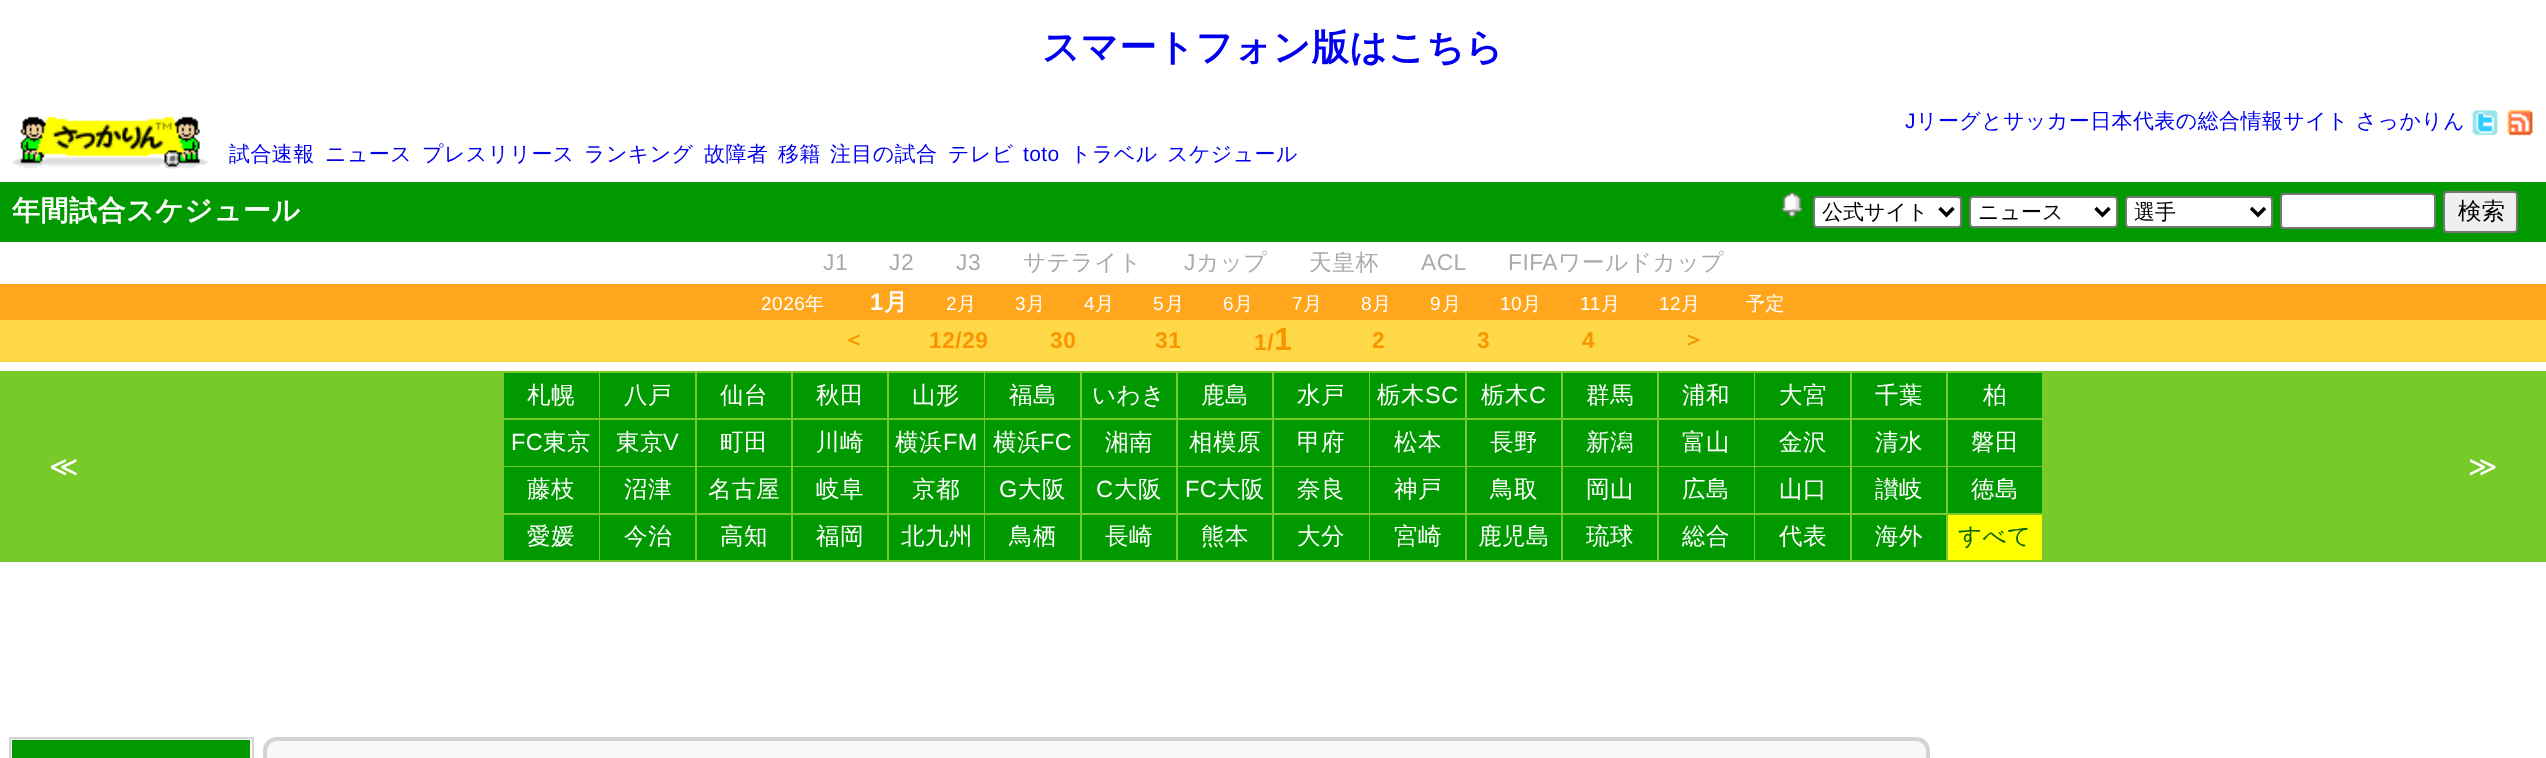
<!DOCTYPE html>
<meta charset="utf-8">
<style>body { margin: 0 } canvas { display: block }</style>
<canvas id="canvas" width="2546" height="758"></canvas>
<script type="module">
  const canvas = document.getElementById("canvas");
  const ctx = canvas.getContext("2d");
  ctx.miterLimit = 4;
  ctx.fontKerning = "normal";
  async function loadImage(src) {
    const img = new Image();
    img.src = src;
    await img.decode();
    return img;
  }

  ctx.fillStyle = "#ffffff";
  ctx.fillRect(0, 0, 2546, 758);
  ctx.letterSpacing = "0.5px";
  ctx.font = "bold 37.25px WenQuanYi Zen Hei";
  ctx.fillStyle = "#0000ee";
  ctx.fillText("スマートフォン版はこちら", 1042, 60);
  ctx.drawImage(await loadImage("img1.png"), 12, 116, 197, 53);
  ctx.letterSpacing = "0.4px";
  ctx.font = "21px Liberation Sans";
  ctx.fillText("J", 1905, 128);
  ctx.font = "500 21px WenQuanYi Zen Hei";
  ctx.fillText("リーグとサッカー日本代表の総合情報サイト さっかりん", 1916, 128);
  ctx.drawImage(await loadImage("img2.png"), 2472, 109, 26, 27);
  ctx.drawImage(await loadImage("img3.png"), 2507, 109, 26, 27);
  ctx.fillText("試合速報", 229, 161);
  ctx.fillText("ニュース", 325, 161);
  ctx.fillText("プレスリリース", 422, 161);
  ctx.fillText("ランキング", 584, 161);
  ctx.fillText("故障者", 704, 161);
  ctx.fillText("移籍", 778, 161);
  ctx.fillText("注目の試合", 830, 161);
  ctx.fillText("テレビ", 948, 161);
  ctx.font = "21px Liberation Sans";
  ctx.fillText("toto", 1023, 161);
  ctx.font = "500 21px WenQuanYi Zen Hei";
  ctx.fillText("トラベル", 1070, 161);
  ctx.fillText("スケジュール", 1167, 161);
  ctx.fillStyle = "#009900";
  ctx.fillRect(0, 182, 2546, 60);
  ctx.letterSpacing = "0.5px";
  ctx.font = "bold 28px WenQuanYi Zen Hei";
  ctx.fillStyle = "#ffffff";
  ctx.fillText("年間試合スケジュール", 12, 220);
  ctx.drawImage(await loadImage("img4.png"), 1781, 192, 22, 26);
  ctx.beginPath();
  ctx.roundRect(1814, 197, 147, 30, 3);
  ctx.fill();
  ctx.strokeStyle = "#767676";
  ctx.lineWidth = 2;
  ctx.stroke();
  ctx.beginPath();
  ctx.moveTo(1939.5, 208);
  ctx.lineTo(1946.5, 215);
  ctx.lineTo(1953.5, 208);
  ctx.strokeStyle = "#000000";
  ctx.lineWidth = 3.5;
  ctx.stroke();
  ctx.letterSpacing = "0px";
  ctx.font = "500 21px WenQuanYi Zen Hei";
  ctx.fillStyle = "#000000";
  ctx.fillText("公式サイト", 1822, 219);
  ctx.fillStyle = "#ffffff";
  ctx.beginPath();
  ctx.roundRect(1970, 197, 147, 30, 3);
  ctx.fill();
  ctx.strokeStyle = "#767676";
  ctx.lineWidth = 2;
  ctx.stroke();
  ctx.beginPath();
  ctx.moveTo(2095.5, 208);
  ctx.lineTo(2102.5, 215);
  ctx.lineTo(2109.5, 208);
  ctx.strokeStyle = "#000000";
  ctx.lineWidth = 3.5;
  ctx.stroke();
  ctx.fillStyle = "#000000";
  ctx.fillText("ニュース", 1978, 219);
  ctx.fillStyle = "#ffffff";
  ctx.beginPath();
  ctx.roundRect(2126, 197, 146, 30, 3);
  ctx.fill();
  ctx.strokeStyle = "#767676";
  ctx.lineWidth = 2;
  ctx.stroke();
  ctx.beginPath();
  ctx.moveTo(2251, 208);
  ctx.lineTo(2258, 215);
  ctx.lineTo(2265, 208);
  ctx.strokeStyle = "#000000";
  ctx.lineWidth = 3.5;
  ctx.stroke();
  ctx.fillStyle = "#000000";
  ctx.fillText("選手", 2134, 219);
  ctx.fillStyle = "#ffffff";
  ctx.beginPath();
  ctx.roundRect(2281, 194, 154, 34, 3);
  ctx.fill();
  ctx.strokeStyle = "#767676";
  ctx.lineWidth = 2;
  ctx.stroke();
  ctx.fillStyle = "#efefef";
  ctx.beginPath();
  ctx.roundRect(2444, 192, 73, 40, 3);
  ctx.fill();
  ctx.stroke();
  ctx.font = "500 23.5px WenQuanYi Zen Hei";
  ctx.fillStyle = "#000000";
  ctx.fillText("検索", 2458, 219);
  ctx.letterSpacing = "0.5px";
  ctx.font = "22.75px Liberation Sans";
  ctx.fillStyle = "#aaaaaa";
  ctx.fillText("J1", 823, 270);
  ctx.fillText("J2", 889, 270);
  ctx.fillText("J3", 956, 270);
  ctx.font = "500 22.75px WenQuanYi Zen Hei";
  ctx.fillText("サテライト", 1023, 270);
  ctx.font = "22.75px Liberation Sans";
  ctx.fillText("J", 1184, 270);
  ctx.font = "500 22.75px WenQuanYi Zen Hei";
  ctx.fillText("カップ", 1196, 270);
  ctx.fillText("天皇杯", 1309, 270);
  ctx.font = "22.75px Liberation Sans";
  ctx.fillText("ACL", 1421, 270);
  ctx.fillText("FIFA", 1508, 270);
  ctx.font = "500 22.75px WenQuanYi Zen Hei";
  ctx.fillText("ワールドカップ", 1558, 270);
  ctx.fillStyle = "#ffa61d";
  ctx.fillRect(0, 284, 2546, 36);
  ctx.font = "19px Liberation Sans";
  ctx.fillStyle = "#ffffff";
  ctx.fillText("2026", 761, 310);
  ctx.font = "500 19px WenQuanYi Zen Hei";
  ctx.fillText("年", 805, 310);
  ctx.font = "bold 23.5px Liberation Sans";
  ctx.fillText("1", 870, 310);
  ctx.font = "bold 23.5px WenQuanYi Zen Hei";
  ctx.fillText("月", 884, 310);
  ctx.font = "19px Liberation Sans";
  ctx.fillText("2", 946, 310);
  ctx.font = "500 19px WenQuanYi Zen Hei";
  ctx.fillText("月", 957, 310);
  ctx.font = "19px Liberation Sans";
  ctx.fillText("3", 1015, 310);
  ctx.font = "500 19px WenQuanYi Zen Hei";
  ctx.fillText("月", 1026, 310);
  ctx.font = "19px Liberation Sans";
  ctx.fillText("4", 1084, 310);
  ctx.font = "500 19px WenQuanYi Zen Hei";
  ctx.fillText("月", 1095, 310);
  ctx.font = "19px Liberation Sans";
  ctx.fillText("5", 1153, 310);
  ctx.font = "500 19px WenQuanYi Zen Hei";
  ctx.fillText("月", 1165, 310);
  ctx.font = "19px Liberation Sans";
  ctx.fillText("6", 1223, 310);
  ctx.font = "500 19px WenQuanYi Zen Hei";
  ctx.fillText("月", 1234, 310);
  ctx.font = "19px Liberation Sans";
  ctx.fillText("7", 1292, 310);
  ctx.font = "500 19px WenQuanYi Zen Hei";
  ctx.fillText("月", 1303, 310);
  ctx.font = "19px Liberation Sans";
  ctx.fillText("8", 1361, 310);
  ctx.font = "500 19px WenQuanYi Zen Hei";
  ctx.fillText("月", 1372, 310);
  ctx.font = "19px Liberation Sans";
  ctx.fillText("9", 1430, 310);
  ctx.font = "500 19px WenQuanYi Zen Hei";
  ctx.fillText("月", 1442, 310);
  ctx.font = "19px Liberation Sans";
  ctx.fillText("10", 1500, 310);
  ctx.font = "500 19px WenQuanYi Zen Hei";
  ctx.fillText("月", 1522, 310);
  ctx.font = "19px Liberation Sans";
  ctx.fillText("11", 1580, 310);
  ctx.font = "500 19px WenQuanYi Zen Hei";
  ctx.fillText("月", 1601, 310);
  ctx.font = "19px Liberation Sans";
  ctx.fillText("12", 1659, 310);
  ctx.font = "500 19px WenQuanYi Zen Hei";
  ctx.fillText("月", 1681, 310);
  ctx.fillText("予定", 1746, 310);
  ctx.fillStyle = "#ffd847";
  ctx.fillRect(0, 320, 2546, 42);
  ctx.font = "bold 22.75px WenQuanYi Zen Hei";
  ctx.fillStyle = "#f89600";
  ctx.fillText("＜", 842, 347);
  ctx.font = "bold 22.75px Liberation Sans";
  ctx.fillText("12/29", 929, 348);
  ctx.fillText("30", 1050, 348);
  ctx.fillText("31", 1155, 348);
  ctx.fillText("1/", 1254, 350);
  ctx.font = "bold 32px Liberation Sans";
  ctx.fillText("1", 1274, 350);
  ctx.font = "bold 22.75px Liberation Sans";
  ctx.fillText("2", 1372, 348);
  ctx.fillText("3", 1477, 348);
  ctx.fillText("4", 1582, 348);
  ctx.font = "bold 22.75px WenQuanYi Zen Hei";
  ctx.fillText("＞", 1682, 347);
  ctx.fillStyle = "#77ca2a";
  ctx.fillRect(0, 371, 2546, 191);
  ctx.letterSpacing = "1px";
  ctx.font = "28px DejaVu Sans";
  ctx.fillStyle = "#ffffff";
  ctx.fillText("≪", 49, 476);
  ctx.fillStyle = "#009900";
  ctx.fillRect(504, 373, 95, 45);
  ctx.letterSpacing = "0.5px";
  ctx.font = "500 23.5px WenQuanYi Zen Hei";
  ctx.fillStyle = "#ffffff";
  ctx.fillText("札幌", 527, 403);
  ctx.fillStyle = "#009900";
  ctx.fillRect(600, 373, 95, 45);
  ctx.fillStyle = "#ffffff";
  ctx.fillText("八戸", 624, 403);
  ctx.fillStyle = "#009900";
  ctx.fillRect(697, 373, 94, 45);
  ctx.fillStyle = "#ffffff";
  ctx.fillText("仙台", 720, 403);
  ctx.fillStyle = "#009900";
  ctx.fillRect(793, 373, 94, 45);
  ctx.fillStyle = "#ffffff";
  ctx.fillText("秋田", 816, 403);
  ctx.fillStyle = "#009900";
  ctx.fillRect(889, 373, 95, 45);
  ctx.fillStyle = "#ffffff";
  ctx.fillText("山形", 912, 403);
  ctx.fillStyle = "#009900";
  ctx.fillRect(985, 373, 95, 45);
  ctx.fillStyle = "#ffffff";
  ctx.fillText("福島", 1009, 403);
  ctx.fillStyle = "#009900";
  ctx.fillRect(1082, 373, 94, 45);
  ctx.fillStyle = "#ffffff";
  ctx.fillText("いわき", 1092, 403);
  ctx.fillStyle = "#009900";
  ctx.fillRect(1178, 373, 94, 45);
  ctx.fillStyle = "#ffffff";
  ctx.fillText("鹿島", 1201, 403);
  ctx.fillStyle = "#009900";
  ctx.fillRect(1274, 373, 95, 45);
  ctx.fillStyle = "#ffffff";
  ctx.fillText("水戸", 1297, 403);
  ctx.fillStyle = "#009900";
  ctx.fillRect(1370, 373, 95, 45);
  ctx.fillStyle = "#ffffff";
  ctx.fillText("栃木", 1377, 403);
  ctx.font = "23.5px Liberation Sans";
  ctx.fillText("SC", 1425, 403);
  ctx.fillStyle = "#009900";
  ctx.fillRect(1467, 373, 94, 45);
  ctx.font = "500 23.5px WenQuanYi Zen Hei";
  ctx.fillStyle = "#ffffff";
  ctx.fillText("栃木", 1481, 403);
  ctx.font = "23.5px Liberation Sans";
  ctx.fillText("C", 1529, 403);
  ctx.fillStyle = "#009900";
  ctx.fillRect(1563, 373, 94, 45);
  ctx.font = "500 23.5px WenQuanYi Zen Hei";
  ctx.fillStyle = "#ffffff";
  ctx.fillText("群馬", 1586, 403);
  ctx.fillStyle = "#009900";
  ctx.fillRect(1659, 373, 95, 45);
  ctx.fillStyle = "#ffffff";
  ctx.fillText("浦和", 1682, 403);
  ctx.fillStyle = "#009900";
  ctx.fillRect(1755, 373, 95, 45);
  ctx.fillStyle = "#ffffff";
  ctx.fillText("大宮", 1779, 403);
  ctx.fillStyle = "#009900";
  ctx.fillRect(1852, 373, 94, 45);
  ctx.fillStyle = "#ffffff";
  ctx.fillText("千葉", 1875, 403);
  ctx.fillStyle = "#009900";
  ctx.fillRect(1948, 373, 94, 45);
  ctx.fillStyle = "#ffffff";
  ctx.fillText("柏", 1983, 403);
  ctx.fillStyle = "#009900";
  ctx.fillRect(504, 420, 95, 46);
  ctx.font = "23.5px Liberation Sans";
  ctx.fillStyle = "#ffffff";
  ctx.fillText("FC", 511, 450);
  ctx.font = "500 23.5px WenQuanYi Zen Hei";
  ctx.fillText("東京", 543, 450);
  ctx.fillStyle = "#009900";
  ctx.fillRect(600, 420, 95, 46);
  ctx.fillStyle = "#ffffff";
  ctx.fillText("東京", 616, 450);
  ctx.font = "23.5px Liberation Sans";
  ctx.fillText("V", 663, 450);
  ctx.fillStyle = "#009900";
  ctx.fillRect(697, 420, 94, 46);
  ctx.font = "500 23.5px WenQuanYi Zen Hei";
  ctx.fillStyle = "#ffffff";
  ctx.fillText("町田", 720, 450);
  ctx.fillStyle = "#009900";
  ctx.fillRect(793, 420, 94, 46);
  ctx.fillStyle = "#ffffff";
  ctx.fillText("川崎", 816, 450);
  ctx.fillStyle = "#009900";
  ctx.fillRect(889, 420, 95, 46);
  ctx.fillStyle = "#ffffff";
  ctx.fillText("横浜", 895, 450);
  ctx.font = "23.5px Liberation Sans";
  ctx.fillText("FM", 943, 450);
  ctx.fillStyle = "#009900";
  ctx.fillRect(985, 420, 95, 46);
  ctx.font = "500 23.5px WenQuanYi Zen Hei";
  ctx.fillStyle = "#ffffff";
  ctx.fillText("横浜", 993, 450);
  ctx.font = "23.5px Liberation Sans";
  ctx.fillText("FC", 1040, 450);
  ctx.fillStyle = "#009900";
  ctx.fillRect(1082, 420, 94, 46);
  ctx.font = "500 23.5px WenQuanYi Zen Hei";
  ctx.fillStyle = "#ffffff";
  ctx.fillText("湘南", 1105, 450);
  ctx.fillStyle = "#009900";
  ctx.fillRect(1178, 420, 94, 46);
  ctx.fillStyle = "#ffffff";
  ctx.fillText("相模原", 1189, 450);
  ctx.fillStyle = "#009900";
  ctx.fillRect(1274, 420, 95, 46);
  ctx.fillStyle = "#ffffff";
  ctx.fillText("甲府", 1297, 450);
  ctx.fillStyle = "#009900";
  ctx.fillRect(1370, 420, 95, 46);
  ctx.fillStyle = "#ffffff";
  ctx.fillText("松本", 1394, 450);
  ctx.fillStyle = "#009900";
  ctx.fillRect(1467, 420, 94, 46);
  ctx.fillStyle = "#ffffff";
  ctx.fillText("長野", 1490, 450);
  ctx.fillStyle = "#009900";
  ctx.fillRect(1563, 420, 94, 46);
  ctx.fillStyle = "#ffffff";
  ctx.fillText("新潟", 1586, 450);
  ctx.fillStyle = "#009900";
  ctx.fillRect(1659, 420, 95, 46);
  ctx.fillStyle = "#ffffff";
  ctx.fillText("富山", 1682, 450);
  ctx.fillStyle = "#009900";
  ctx.fillRect(1755, 420, 95, 46);
  ctx.fillStyle = "#ffffff";
  ctx.fillText("金沢", 1779, 450);
  ctx.fillStyle = "#009900";
  ctx.fillRect(1852, 420, 94, 46);
  ctx.fillStyle = "#ffffff";
  ctx.fillText("清水", 1875, 450);
  ctx.fillStyle = "#009900";
  ctx.fillRect(1948, 420, 94, 46);
  ctx.fillStyle = "#ffffff";
  ctx.fillText("磐田", 1971, 450);
  ctx.fillStyle = "#009900";
  ctx.fillRect(504, 467, 95, 46);
  ctx.fillStyle = "#ffffff";
  ctx.fillText("藤枝", 527, 497);
  ctx.fillStyle = "#009900";
  ctx.fillRect(600, 467, 95, 46);
  ctx.fillStyle = "#ffffff";
  ctx.fillText("沼津", 624, 497);
  ctx.fillStyle = "#009900";
  ctx.fillRect(697, 467, 94, 46);
  ctx.fillStyle = "#ffffff";
  ctx.fillText("名古屋", 708, 497);
  ctx.fillStyle = "#009900";
  ctx.fillRect(793, 467, 94, 46);
  ctx.fillStyle = "#ffffff";
  ctx.fillText("岐阜", 816, 497);
  ctx.fillStyle = "#009900";
  ctx.fillRect(889, 467, 95, 46);
  ctx.fillStyle = "#ffffff";
  ctx.fillText("京都", 912, 497);
  ctx.fillStyle = "#009900";
  ctx.fillRect(985, 467, 95, 46);
  ctx.font = "23.5px Liberation Sans";
  ctx.fillStyle = "#ffffff";
  ctx.fillText("G", 999, 497);
  ctx.font = "500 23.5px WenQuanYi Zen Hei";
  ctx.fillText("大阪", 1018, 497);
  ctx.fillStyle = "#009900";
  ctx.fillRect(1082, 467, 94, 46);
  ctx.font = "23.5px Liberation Sans";
  ctx.fillStyle = "#ffffff";
  ctx.fillText("C", 1096, 497);
  ctx.font = "500 23.5px WenQuanYi Zen Hei";
  ctx.fillText("大阪", 1114, 497);
  ctx.fillStyle = "#009900";
  ctx.fillRect(1178, 467, 94, 46);
  ctx.font = "23.5px Liberation Sans";
  ctx.fillStyle = "#ffffff";
  ctx.fillText("FC", 1185, 497);
  ctx.font = "500 23.5px WenQuanYi Zen Hei";
  ctx.fillText("大阪", 1217, 497);
  ctx.fillStyle = "#009900";
  ctx.fillRect(1274, 467, 95, 46);
  ctx.fillStyle = "#ffffff";
  ctx.fillText("奈良", 1297, 497);
  ctx.fillStyle = "#009900";
  ctx.fillRect(1370, 467, 95, 46);
  ctx.fillStyle = "#ffffff";
  ctx.fillText("神戸", 1394, 497);
  ctx.fillStyle = "#009900";
  ctx.fillRect(1467, 467, 94, 46);
  ctx.fillStyle = "#ffffff";
  ctx.fillText("鳥取", 1490, 497);
  ctx.fillStyle = "#009900";
  ctx.fillRect(1563, 467, 94, 46);
  ctx.fillStyle = "#ffffff";
  ctx.fillText("岡山", 1586, 497);
  ctx.fillStyle = "#009900";
  ctx.fillRect(1659, 467, 95, 46);
  ctx.fillStyle = "#ffffff";
  ctx.fillText("広島", 1682, 497);
  ctx.fillStyle = "#009900";
  ctx.fillRect(1755, 467, 95, 46);
  ctx.fillStyle = "#ffffff";
  ctx.fillText("山口", 1779, 497);
  ctx.fillStyle = "#009900";
  ctx.fillRect(1852, 467, 94, 46);
  ctx.fillStyle = "#ffffff";
  ctx.fillText("讃岐", 1875, 497);
  ctx.fillStyle = "#009900";
  ctx.fillRect(1948, 467, 94, 46);
  ctx.fillStyle = "#ffffff";
  ctx.fillText("徳島", 1971, 497);
  ctx.fillStyle = "#009900";
  ctx.fillRect(504, 515, 95, 45);
  ctx.fillStyle = "#ffffff";
  ctx.fillText("愛媛", 527, 544);
  ctx.fillStyle = "#009900";
  ctx.fillRect(600, 515, 95, 45);
  ctx.fillStyle = "#ffffff";
  ctx.fillText("今治", 624, 544);
  ctx.fillStyle = "#009900";
  ctx.fillRect(697, 515, 94, 45);
  ctx.fillStyle = "#ffffff";
  ctx.fillText("高知", 720, 544);
  ctx.fillStyle = "#009900";
  ctx.fillRect(793, 515, 94, 45);
  ctx.fillStyle = "#ffffff";
  ctx.fillText("福岡", 816, 544);
  ctx.fillStyle = "#009900";
  ctx.fillRect(889, 515, 95, 45);
  ctx.fillStyle = "#ffffff";
  ctx.fillText("北九州", 901, 544);
  ctx.fillStyle = "#009900";
  ctx.fillRect(985, 515, 95, 45);
  ctx.fillStyle = "#ffffff";
  ctx.fillText("鳥栖", 1009, 544);
  ctx.fillStyle = "#009900";
  ctx.fillRect(1082, 515, 94, 45);
  ctx.fillStyle = "#ffffff";
  ctx.fillText("長崎", 1105, 544);
  ctx.fillStyle = "#009900";
  ctx.fillRect(1178, 515, 94, 45);
  ctx.fillStyle = "#ffffff";
  ctx.fillText("熊本", 1201, 544);
  ctx.fillStyle = "#009900";
  ctx.fillRect(1274, 515, 95, 45);
  ctx.fillStyle = "#ffffff";
  ctx.fillText("大分", 1297, 544);
  ctx.fillStyle = "#009900";
  ctx.fillRect(1370, 515, 95, 45);
  ctx.fillStyle = "#ffffff";
  ctx.fillText("宮崎", 1394, 544);
  ctx.fillStyle = "#009900";
  ctx.fillRect(1467, 515, 94, 45);
  ctx.fillStyle = "#ffffff";
  ctx.fillText("鹿児島", 1478, 544);
  ctx.fillStyle = "#009900";
  ctx.fillRect(1563, 515, 94, 45);
  ctx.fillStyle = "#ffffff";
  ctx.fillText("琉球", 1586, 544);
  ctx.fillStyle = "#009900";
  ctx.fillRect(1659, 515, 95, 45);
  ctx.fillStyle = "#ffffff";
  ctx.fillText("総合", 1682, 544);
  ctx.fillStyle = "#009900";
  ctx.fillRect(1755, 515, 95, 45);
  ctx.fillStyle = "#ffffff";
  ctx.fillText("代表", 1779, 544);
  ctx.fillStyle = "#009900";
  ctx.fillRect(1852, 515, 94, 45);
  ctx.fillStyle = "#ffffff";
  ctx.fillText("海外", 1875, 544);
  ctx.fillStyle = "#ffff00";
  ctx.fillRect(1948, 515, 94, 45);
  ctx.fillStyle = "#006400";
  ctx.fillText("すべて", 1958, 544);
  ctx.letterSpacing = "1px";
  ctx.font = "28px DejaVu Sans";
  ctx.fillStyle = "#ffffff";
  ctx.fillText("≫", 2468, 476);
  ctx.strokeStyle = "#d3d3d3";
  ctx.strokeRect(10, 738, 243, 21);
  ctx.fillStyle = "#009900";
  ctx.fillRect(12, 740, 238, 18);
  ctx.fillStyle = "#f8f8f8";
  ctx.beginPath();
  ctx.roundRect(265, 739, 1663, 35, 12);
  ctx.fill();
  ctx.lineWidth = 4;
  ctx.stroke();
</script>
